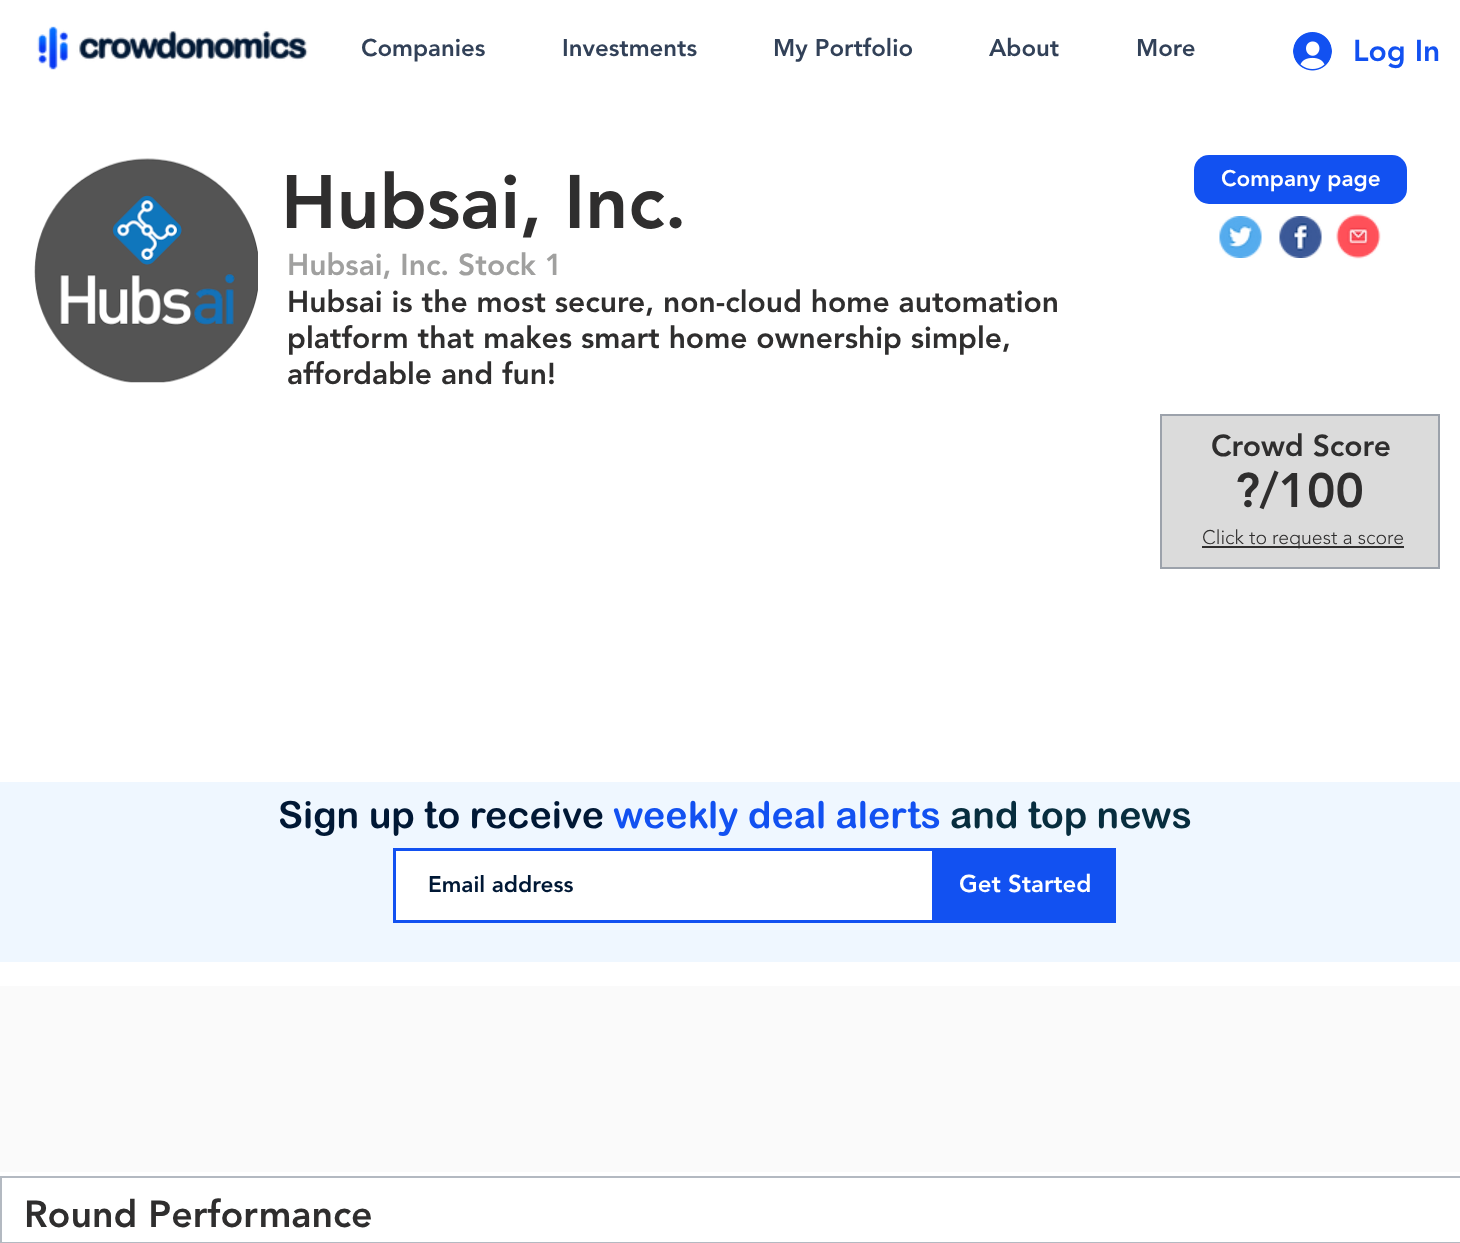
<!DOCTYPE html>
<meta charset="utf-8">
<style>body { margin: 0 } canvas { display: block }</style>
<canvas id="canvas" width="1460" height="1243"></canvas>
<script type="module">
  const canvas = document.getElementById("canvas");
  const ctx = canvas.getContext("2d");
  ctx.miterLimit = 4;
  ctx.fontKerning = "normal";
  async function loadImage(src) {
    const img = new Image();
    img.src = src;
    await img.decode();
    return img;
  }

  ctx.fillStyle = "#ffffff";
  ctx.fillRect(0, 0, 1460, 1243);
  ctx.drawImage(await loadImage("img1.png"), 37, 26, 271, 44);
  ctx.font = "900 24px 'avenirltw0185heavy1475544'";
  ctx.fillStyle = "#324158";
  ctx.fillText("Companies", 361, 56);
  ctx.fillText("Investments", 562, 56);
  ctx.fillText("My Portfolio", 773, 56);
  ctx.fillText("About", 989, 56);
  ctx.fillText("More", 1136, 56);
  ctx.drawImage(await loadImage("img2.png"), 1293, 32, 39, 39);
  ctx.font = "900 30px 'avenirltw0185heavy1475544'";
  ctx.fillStyle = "#1251f1";
  ctx.fillText("Log In", 1353, 61);
  ctx.drawImage(await loadImage("img3.png"), 34, 158, 224, 225);
  ctx.font = "900 75px 'avenirltw0185heavy1475544'";
  ctx.fillStyle = "#2f2e2e";
  ctx.fillText("Hubsai, Inc.", 281, 228);
  ctx.font = "900 30px 'avenirltw0185heavy1475544'";
  ctx.fillStyle = "#a0a09f";
  ctx.fillText("Hubsai, Inc. Stock 1", 287, 275);
  ctx.fillStyle = "#2f2e2e";
  ctx.fillText("Hubsai is the most secure, non-cloud home automation", 287, 312);
  ctx.fillText("platform that makes smart home ownership simple,", 287, 348);
  ctx.fillText("affordable and fun!", 287, 384);
  ctx.fillStyle = "#1251f1";
  ctx.beginPath();
  ctx.roundRect(1194, 155, 213, 49, 15);
  ctx.fill();
  ctx.font = "900 22.5px 'avenirltw0185heavy1475544'";
  ctx.fillStyle = "#ffffff";
  ctx.fillText("Company page", 1221, 186);
  ctx.drawImage(await loadImage("img4.png"), 1219, 216, 43, 42);
  ctx.drawImage(await loadImage("img5.png"), 1279, 216, 43, 42);
  ctx.drawImage(await loadImage("img6.png"), 1336, 214, 45, 45);
  ctx.fillStyle = "#dbdbdb";
  ctx.beginPath();
  ctx.rect(1161, 415, 278, 153);
  ctx.fill();
  ctx.strokeStyle = "#9ca2ab";
  ctx.lineWidth = 2;
  ctx.stroke();
  ctx.font = "900 30px 'avenirltw0185heavy1475544'";
  ctx.fillStyle = "#2f2e2e";
  ctx.fillText("Crowd Score", 1211, 456);
  ctx.font = "900 48px 'avenirltw0185heavy1475544'";
  ctx.fillText("?/100", 1235, 507);
  ctx.fillRect(1202, 546, 202, 2);
  ctx.font = "300 19.5px 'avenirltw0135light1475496'";
  ctx.fillText("Click to request a score", 1202, 544);
  ctx.fillStyle = "#eff7ff";
  ctx.fillRect(0, 782, 1460, 180);
  ctx.font = "bold 37.5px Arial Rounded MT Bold";
  ctx.fillStyle = "#001835";
  ctx.fillText("Sign up to receive", 278, 828);
  ctx.fillStyle = "#1251f1";
  ctx.fillText("weekly deal alerts", 613, 828);
  ctx.fillStyle = "#072d3e";
  ctx.fillText("and top news", 950, 828);
  ctx.fillStyle = "#ffffff";
  ctx.beginPath();
  ctx.rect(394.5, 849.5, 539, 72);
  ctx.fill();
  ctx.strokeStyle = "#1251f1";
  ctx.lineWidth = 3;
  ctx.stroke();
  ctx.font = "900 22.5px 'avenirltw0185heavy1475544'";
  ctx.fillStyle = "#001835";
  ctx.fillText("Email address", 428, 892);
  ctx.fillStyle = "#1251f1";
  ctx.fillRect(935, 848, 181, 75);
  ctx.font = "900 24px 'avenirltw0185heavy1475544'";
  ctx.fillStyle = "#ffffff";
  ctx.fillText("Get Started", 959, 892);
  ctx.fillStyle = "#fafafa";
  ctx.fillRect(0, 986, 1460, 186);
  ctx.strokeStyle = "#b3b9c1";
  ctx.lineWidth = 2;
  ctx.strokeRect(1, 1177, 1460, 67);
  ctx.font = "900 37.5px 'avenirltw0185heavy1475544'";
  ctx.fillStyle = "#2f2e2e";
  ctx.fillText("Round Performance", 24, 1227);
  ctx.strokeRect(1, 1243, 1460, 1);
</script>
